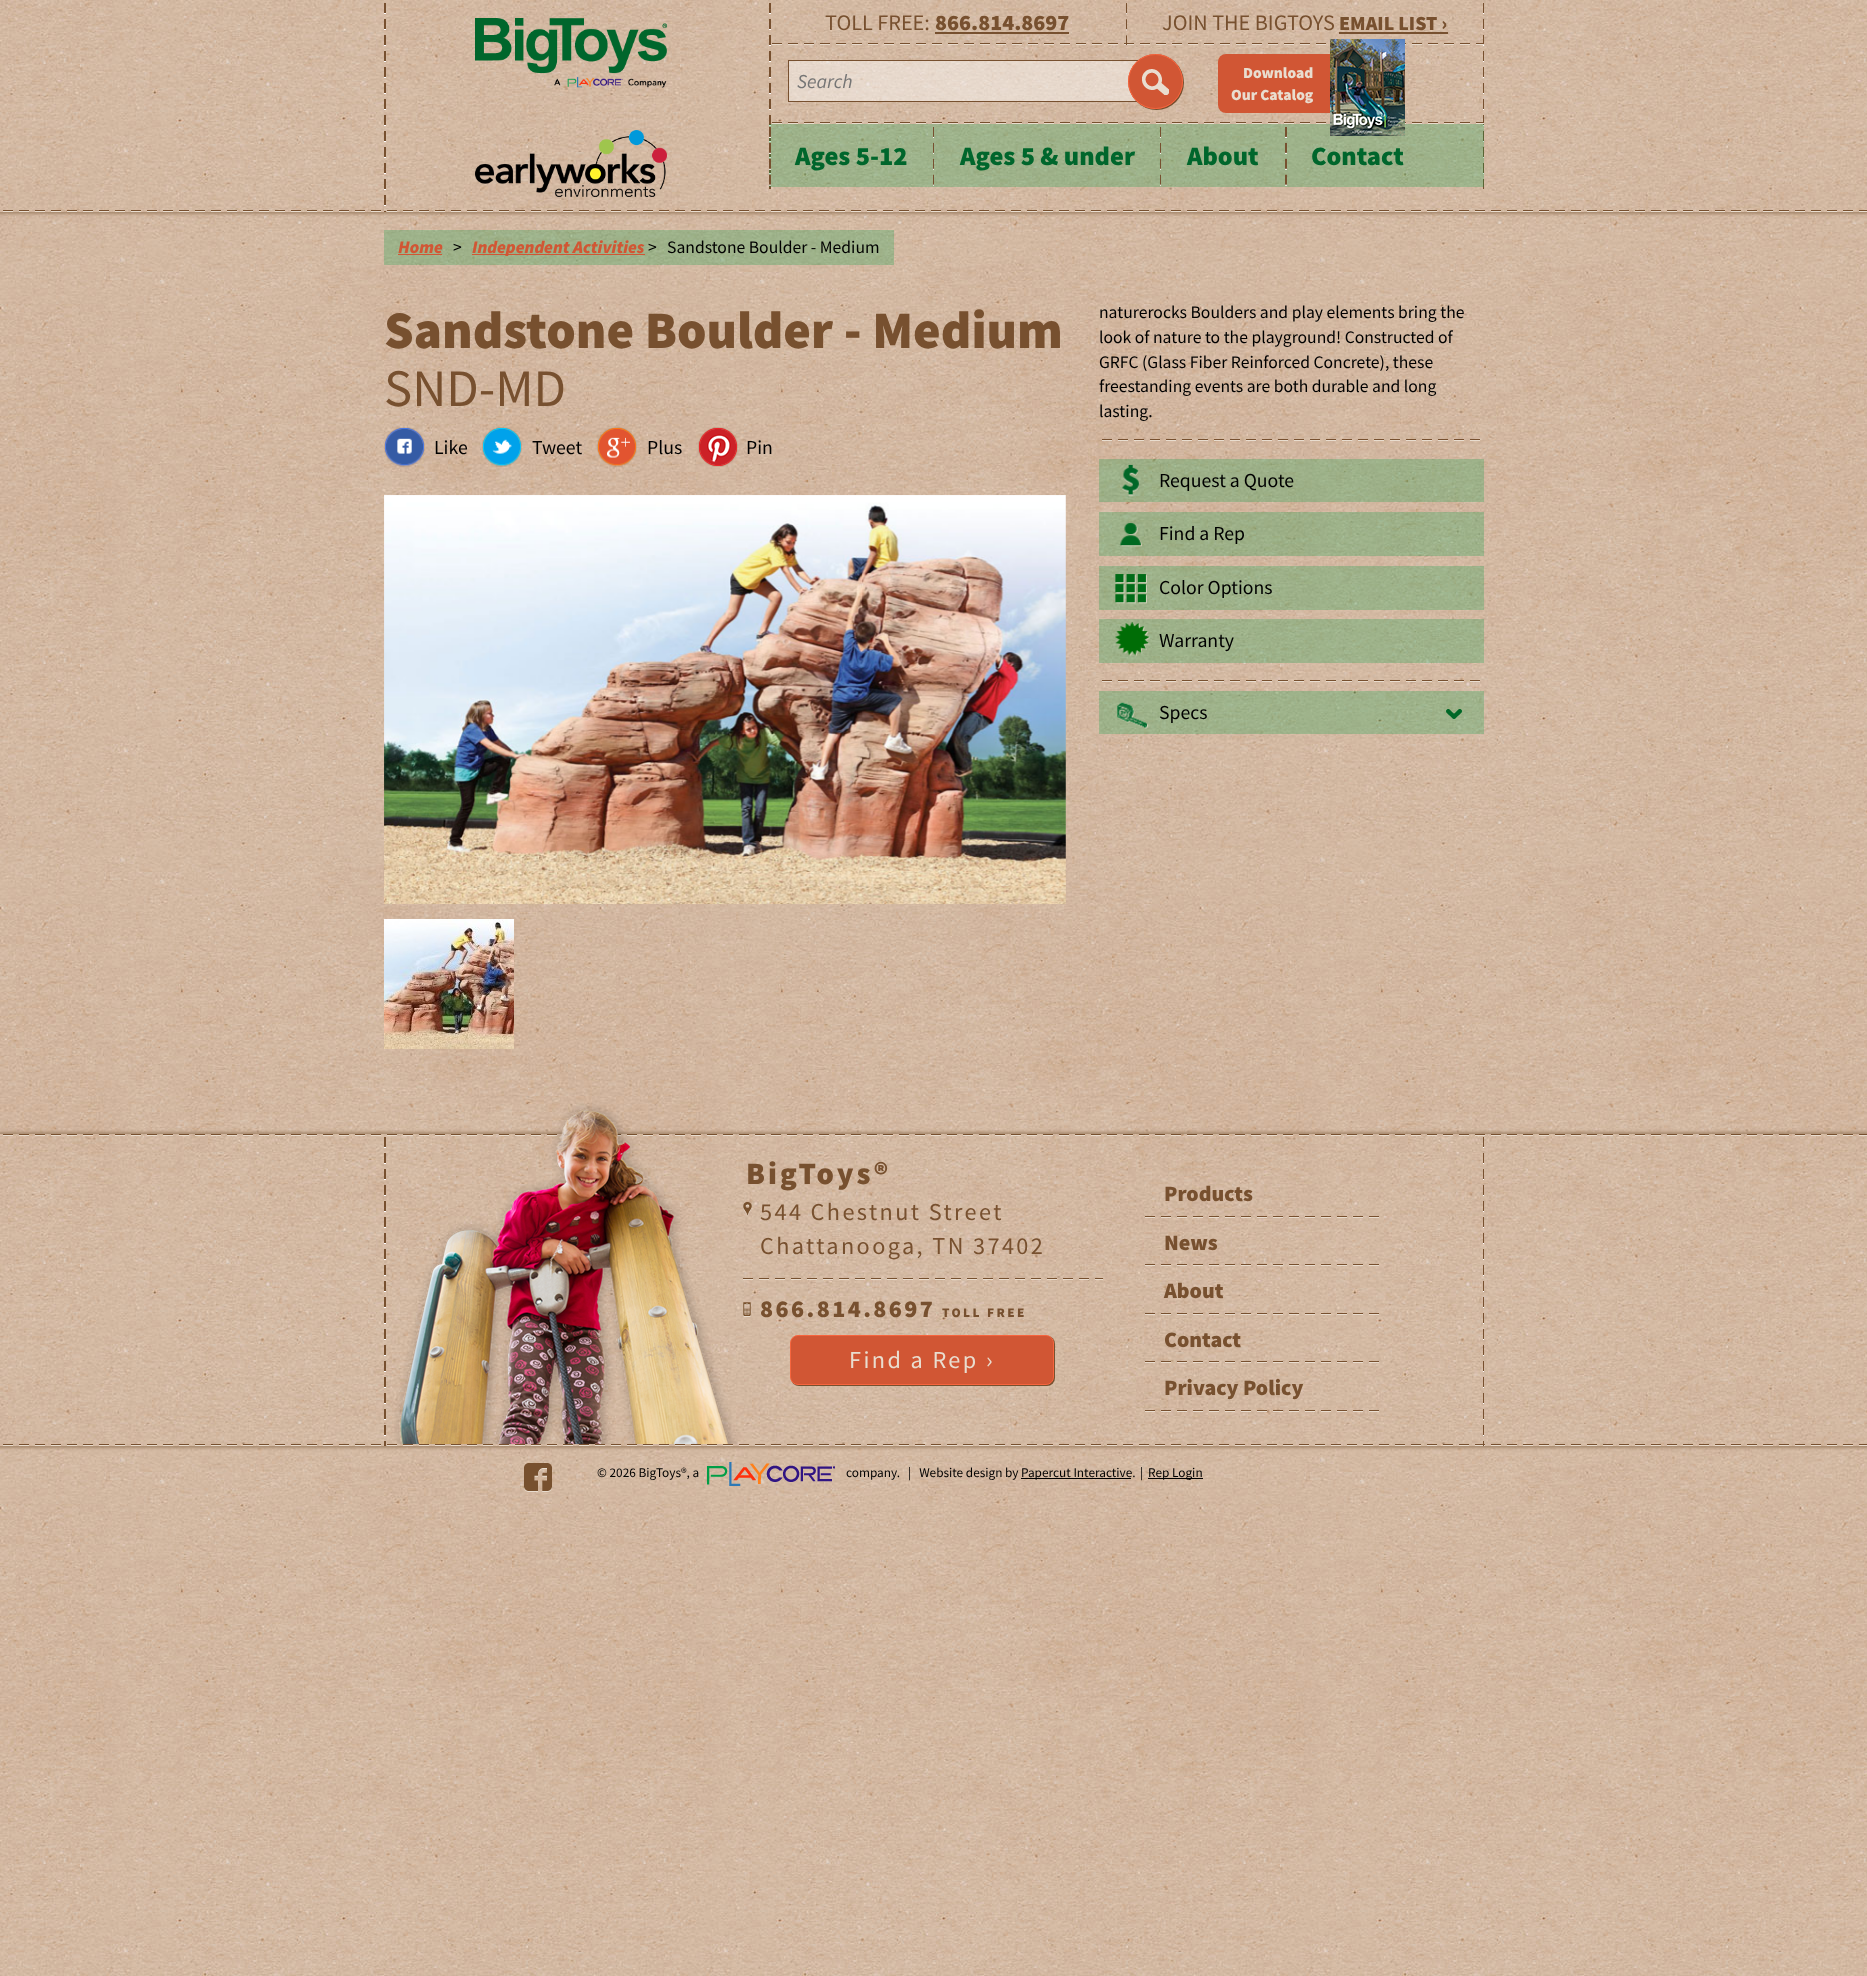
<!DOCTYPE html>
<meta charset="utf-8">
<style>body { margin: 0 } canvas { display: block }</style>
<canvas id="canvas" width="1867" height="1976"></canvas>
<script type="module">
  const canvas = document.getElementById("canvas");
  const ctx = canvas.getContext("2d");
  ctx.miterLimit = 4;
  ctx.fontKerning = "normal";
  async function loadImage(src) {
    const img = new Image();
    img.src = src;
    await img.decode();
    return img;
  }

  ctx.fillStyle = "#ffffff";
  ctx.fillRect(0, 0, 1867, 1976);
  ctx.drawImage(await loadImage("img1.png"), 0, 0, 1867, 1976);
  ctx.save();
  ctx.beginPath();
  ctx.rect(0, 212, 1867, 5);
  ctx.clip();
  ctx.fillStyle = "#a7896d";
  ctx.filter = "blur(1.5px)";
  ctx.beginPath();
  ctx.rect(-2, -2, 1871, 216);
  ctx.fill();
  ctx.filter = "none";
  ctx.restore();
  ctx.drawImage(await loadImage("img2.png"), 3, 210, 1864, 2);
  ctx.drawImage(await loadImage("img3.png"), 384, 3, 2, 209);
  ctx.drawImage(await loadImage("img4.png"), 475, 18, 192, 70);
  ctx.drawImage(await loadImage("img5.png"), 475, 130, 192, 67);
  ctx.drawImage(await loadImage("img6.png"), 769, 3, 715, 186);
  ctx.drawImage(await loadImage("img7.png"), 772, 43, 712, 2);
  ctx.font = "22.25px Source Sans Pro";
  ctx.fillStyle = "#77502f";
  ctx.fillText("TOLL FREE:", 825, 30);
  ctx.font = "900 22.25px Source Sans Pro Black";
  ctx.fillText("866.814.8697", 935, 30);
  ctx.fillRect(935, 32, 134, 2);
  ctx.drawImage(await loadImage("img8.png"), 1126, 3, 1, 42);
  ctx.font = "22.25px Source Sans Pro";
  ctx.fillText("JOIN THE BIGTOYS", 1162, 30);
  ctx.font = "900 20px Source Sans Pro Black";
  ctx.fillText("EMAIL LIST ›", 1339, 30);
  ctx.fillRect(1339, 32, 109, 2);
  ctx.drawImage(await loadImage("img9.png"), 772, 122, 712, 2);
  ctx.fillStyle = "rgba(255, 255, 255, 0.45)";
  ctx.fillRect(789, 61, 349, 40);
  ctx.strokeStyle = "#77502f";
  ctx.strokeRect(788.5, 60.5, 361, 41);
  ctx.font = "italic 19.75px Source Sans Pro";
  ctx.fillStyle = "#757575";
  ctx.fillText("Search", 797, 88);
  ctx.fillStyle = "#77502f";
  ctx.filter = "blur(0.5px)";
  ctx.beginPath();
  ctx.roundRect(1129, 55, 55, 55, 27.5);
  ctx.fill();
  ctx.filter = "none";
  ctx.fillStyle = "#d15634";
  ctx.beginPath();
  ctx.arc(1155.5, 81.5, 27.5, 0, Math.PI * 2);
  ctx.fill();
  ctx.drawImage(await loadImage("img10.png"), 1142, 69, 27, 26);
  ctx.beginPath();
  ctx.arc(1155.5, 81.5, 27, 0, Math.PI * 2);
  ctx.strokeStyle = "#f7653e";
  ctx.stroke();
  ctx.beginPath();
  ctx.roundRect(1218, 54, 166, 59, 8);
  ctx.fill();
  ctx.font = "900 15.5px Source Sans Pro Black";
  ctx.fillStyle = "#e9ddcf";
  ctx.fillText("Download", 1243, 78);
  ctx.fillText("Our Catalog", 1231, 100);
  ctx.fillStyle = "rgba(0, 159, 68, 0.25)";
  ctx.fillRect(769, 124, 715, 63);
  ctx.drawImage(await loadImage("img11.png"), 1330, 39, 75, 97);
  ctx.drawImage(await loadImage("img12.png"), 769, 127, 2, 59);
  ctx.font = "900 26.5px Source Sans Pro Black";
  ctx.fillStyle = "#00662c";
  ctx.fillText("Ages 5-12", 795, 165);
  ctx.drawImage(await loadImage("img13.png"), 933, 127, 1, 59);
  ctx.fillText("Ages 5 & under", 960, 165);
  ctx.drawImage(await loadImage("img14.png"), 1160, 127, 1, 59);
  ctx.fillText("About", 1187, 165);
  ctx.drawImage(await loadImage("img15.png"), 1285, 127, 2, 59);
  ctx.fillText("Contact", 1311, 165);
  ctx.fillStyle = "rgba(0, 159, 68, 0.25)";
  ctx.fillRect(384, 230, 510, 35);
  ctx.font = "italic 900 17.6px Source Sans Pro Black";
  ctx.fillStyle = "#d15634";
  ctx.fillText("Home", 398, 253);
  ctx.fillRect(398, 254, 44, 1);
  ctx.font = "17.6px Source Sans Pro";
  ctx.fillStyle = "#000000";
  ctx.fillText(">", 453, 253);
  ctx.fillStyle = "#d15634";
  ctx.fillRect(472, 254, 173, 1);
  ctx.font = "italic 900 17.6px Source Sans Pro Black";
  ctx.fillText("Independent Activities", 472, 253);
  ctx.font = "17.6px Source Sans Pro";
  ctx.fillStyle = "#000000";
  ctx.fillText(">", 648, 253);
  ctx.fillText("Sandstone Boulder - Medium", 667, 253);
  ctx.font = "900 52.75px Source Sans Pro Black";
  ctx.fillStyle = "#77502f";
  ctx.fillText("Sandstone Boulder - Medium", 384, 348);
  ctx.font = "52.75px Source Sans Pro";
  ctx.fillText("SND-MD", 384, 406);
  ctx.drawImage(await loadImage("img16.png"), 384, 427, 41, 40);
  ctx.font = "19.75px Source Sans Pro";
  ctx.fillStyle = "#000000";
  ctx.fillText("Like", 434, 454);
  ctx.drawImage(await loadImage("img17.png"), 482, 427, 40, 40);
  ctx.fillText("Tweet", 532, 454);
  ctx.drawImage(await loadImage("img18.png"), 597, 427, 40, 40);
  ctx.fillText("Plus", 647, 454);
  ctx.drawImage(await loadImage("img19.png"), 698, 427, 40, 40);
  ctx.fillText("Pin", 746, 454);
  ctx.drawImage(await loadImage("img20.png"), 384, 495, 682, 409);
  ctx.drawImage(await loadImage("img21.png"), 384, 919, 130, 130);
  ctx.drawImage(await loadImage("img22.png"), 1102, 439, 378, 2);
  ctx.font = "17.6px Source Sans Pro";
  ctx.fillText("naturerocks Boulders and play elements bring the", 1099, 318);
  ctx.fillText("look of nature to the playground! Constructed of", 1099, 343);
  ctx.fillText("GRFC (Glass Fiber Reinforced Concrete), these", 1099, 368);
  ctx.fillText("freestanding events are both durable and long", 1099, 392);
  ctx.fillText("lasting.", 1099, 417);
  ctx.drawImage(await loadImage("img23.png"), 1102, 680, 378, 2);
  ctx.fillStyle = "rgba(0, 159, 68, 0.25)";
  ctx.fillRect(1099, 459, 385, 43);
  ctx.drawImage(await loadImage("img24.png"), 1121, 464, 18, 32);
  ctx.font = "19.75px Source Sans Pro";
  ctx.fillStyle = "#000000";
  ctx.fillText("Request a Quote", 1159, 487);
  ctx.fillStyle = "rgba(0, 159, 68, 0.25)";
  ctx.fillRect(1099, 512, 385, 44);
  ctx.drawImage(await loadImage("img25.png"), 1120, 523, 22, 24);
  ctx.fillStyle = "#000000";
  ctx.fillText("Find a Rep", 1159, 540);
  ctx.fillStyle = "rgba(0, 159, 68, 0.25)";
  ctx.fillRect(1099, 566, 385, 44);
  ctx.drawImage(await loadImage("img26.png"), 1115, 574, 32, 30);
  ctx.fillStyle = "#000000";
  ctx.fillText("Color Options", 1159, 594);
  ctx.fillStyle = "rgba(0, 159, 68, 0.25)";
  ctx.fillRect(1099, 619, 385, 44);
  ctx.drawImage(await loadImage("img27.png"), 1115, 622, 35, 35);
  ctx.fillStyle = "#000000";
  ctx.fillText("Warranty", 1159, 647);
  ctx.fillStyle = "rgba(0, 159, 68, 0.25)";
  ctx.fillRect(1099, 691, 385, 43);
  ctx.drawImage(await loadImage("img28.png"), 1446, 709, 16, 10);
  ctx.drawImage(await loadImage("img29.png"), 1117, 702, 31, 27);
  ctx.fillStyle = "#000000";
  ctx.fillText("Specs", 1159, 719);
  ctx.save();
  ctx.beginPath();
  ctx.moveTo(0, 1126);
  ctx.lineTo(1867, 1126);
  ctx.lineTo(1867, 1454);
  ctx.lineTo(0, 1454);
  ctx.closePath();
  ctx.moveTo(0, 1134);
  ctx.lineTo(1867, 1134);
  ctx.lineTo(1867, 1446);
  ctx.lineTo(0, 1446);
  ctx.closePath();
  ctx.clip("evenodd");
  ctx.fillStyle = "#a7896d";
  ctx.filter = "blur(1.5px)";
  ctx.beginPath();
  ctx.rect(-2, 1132, 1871, 316);
  ctx.fill();
  ctx.filter = "none";
  ctx.restore();
  ctx.drawImage(await loadImage("img30.png"), 3, 1134, 1864, 312);
  ctx.drawImage(await loadImage("img31.png"), 384, 1137, 1100, 309);
  ctx.drawImage(await loadImage("img32.png"), 394, 1103, 344, 341);
  ctx.letterSpacing = "3px";
  ctx.font = "900 31px Source Sans Pro Black";
  ctx.fillStyle = "#77502f";
  ctx.fillText("BigToys®", 746, 1184);
  ctx.drawImage(await loadImage("img33.png"), 743, 1202, 360, 78);
  ctx.letterSpacing = "2.4px";
  ctx.font = "24.25px Source Sans Pro";
  ctx.fillText("544 Chestnut Street", 760, 1220);
  ctx.fillText("Chattanooga, TN 37402", 760, 1254);
  ctx.drawImage(await loadImage("img34.png"), 743, 1302, 8, 15);
  ctx.font = "900 24.25px Source Sans Pro Black";
  ctx.fillText("866.814.8697", 760, 1317);
  ctx.font = "900 13.25px Source Sans Pro Black";
  ctx.fillText("TOLL FREE", 942, 1317);
  ctx.filter = "blur(0.5px)";
  ctx.beginPath();
  ctx.roundRect(791, 1336, 264, 50, 8);
  ctx.fill();
  ctx.filter = "none";
  ctx.fillStyle = "#d15634";
  ctx.beginPath();
  ctx.roundRect(790.5, 1335.5, 263, 49, 7.5);
  ctx.fill();
  ctx.stroke();
  ctx.font = "24.25px Source Sans Pro";
  ctx.fillStyle = "#e9ddcf";
  ctx.fillText("Find a Rep ›", 849, 1368);
  ctx.drawImage(await loadImage("img35.png"), 1145, 1216, 234, 2);
  ctx.letterSpacing = "0px";
  ctx.font = "900 22px Source Sans Pro Black";
  ctx.fillStyle = "#77502f";
  ctx.fillText("Products", 1164, 1201);
  ctx.drawImage(await loadImage("img36.png"), 1145, 1264, 234, 2);
  ctx.fillText("News", 1164, 1250);
  ctx.drawImage(await loadImage("img37.png"), 1145, 1313, 234, 2);
  ctx.fillText("About", 1164, 1298);
  ctx.drawImage(await loadImage("img38.png"), 1145, 1361, 234, 2);
  ctx.fillText("Contact", 1164, 1347);
  ctx.drawImage(await loadImage("img39.png"), 1145, 1410, 234, 2);
  ctx.fillText("Privacy Policy", 1164, 1395);
  ctx.drawImage(await loadImage("img40.png"), 524, 1463, 28, 29);
  ctx.font = "13.25px Source Sans Pro";
  ctx.fillStyle = "#000000";
  ctx.fillText("© 2026 BigToys®, a", 597, 1477);
  ctx.drawImage(await loadImage("img41.png"), 707, 1462, 128, 24);
  ctx.fillText("company.   |   Website design by", 846, 1477);
  ctx.fillRect(1021, 1478, 110, 1);
  ctx.fillText("Papercut Interactive.", 1021, 1477);
  ctx.fillText("|", 1140, 1477);
  ctx.fillRect(1148, 1478, 55, 1);
  ctx.fillText("Rep Login", 1148, 1477);
</script>
